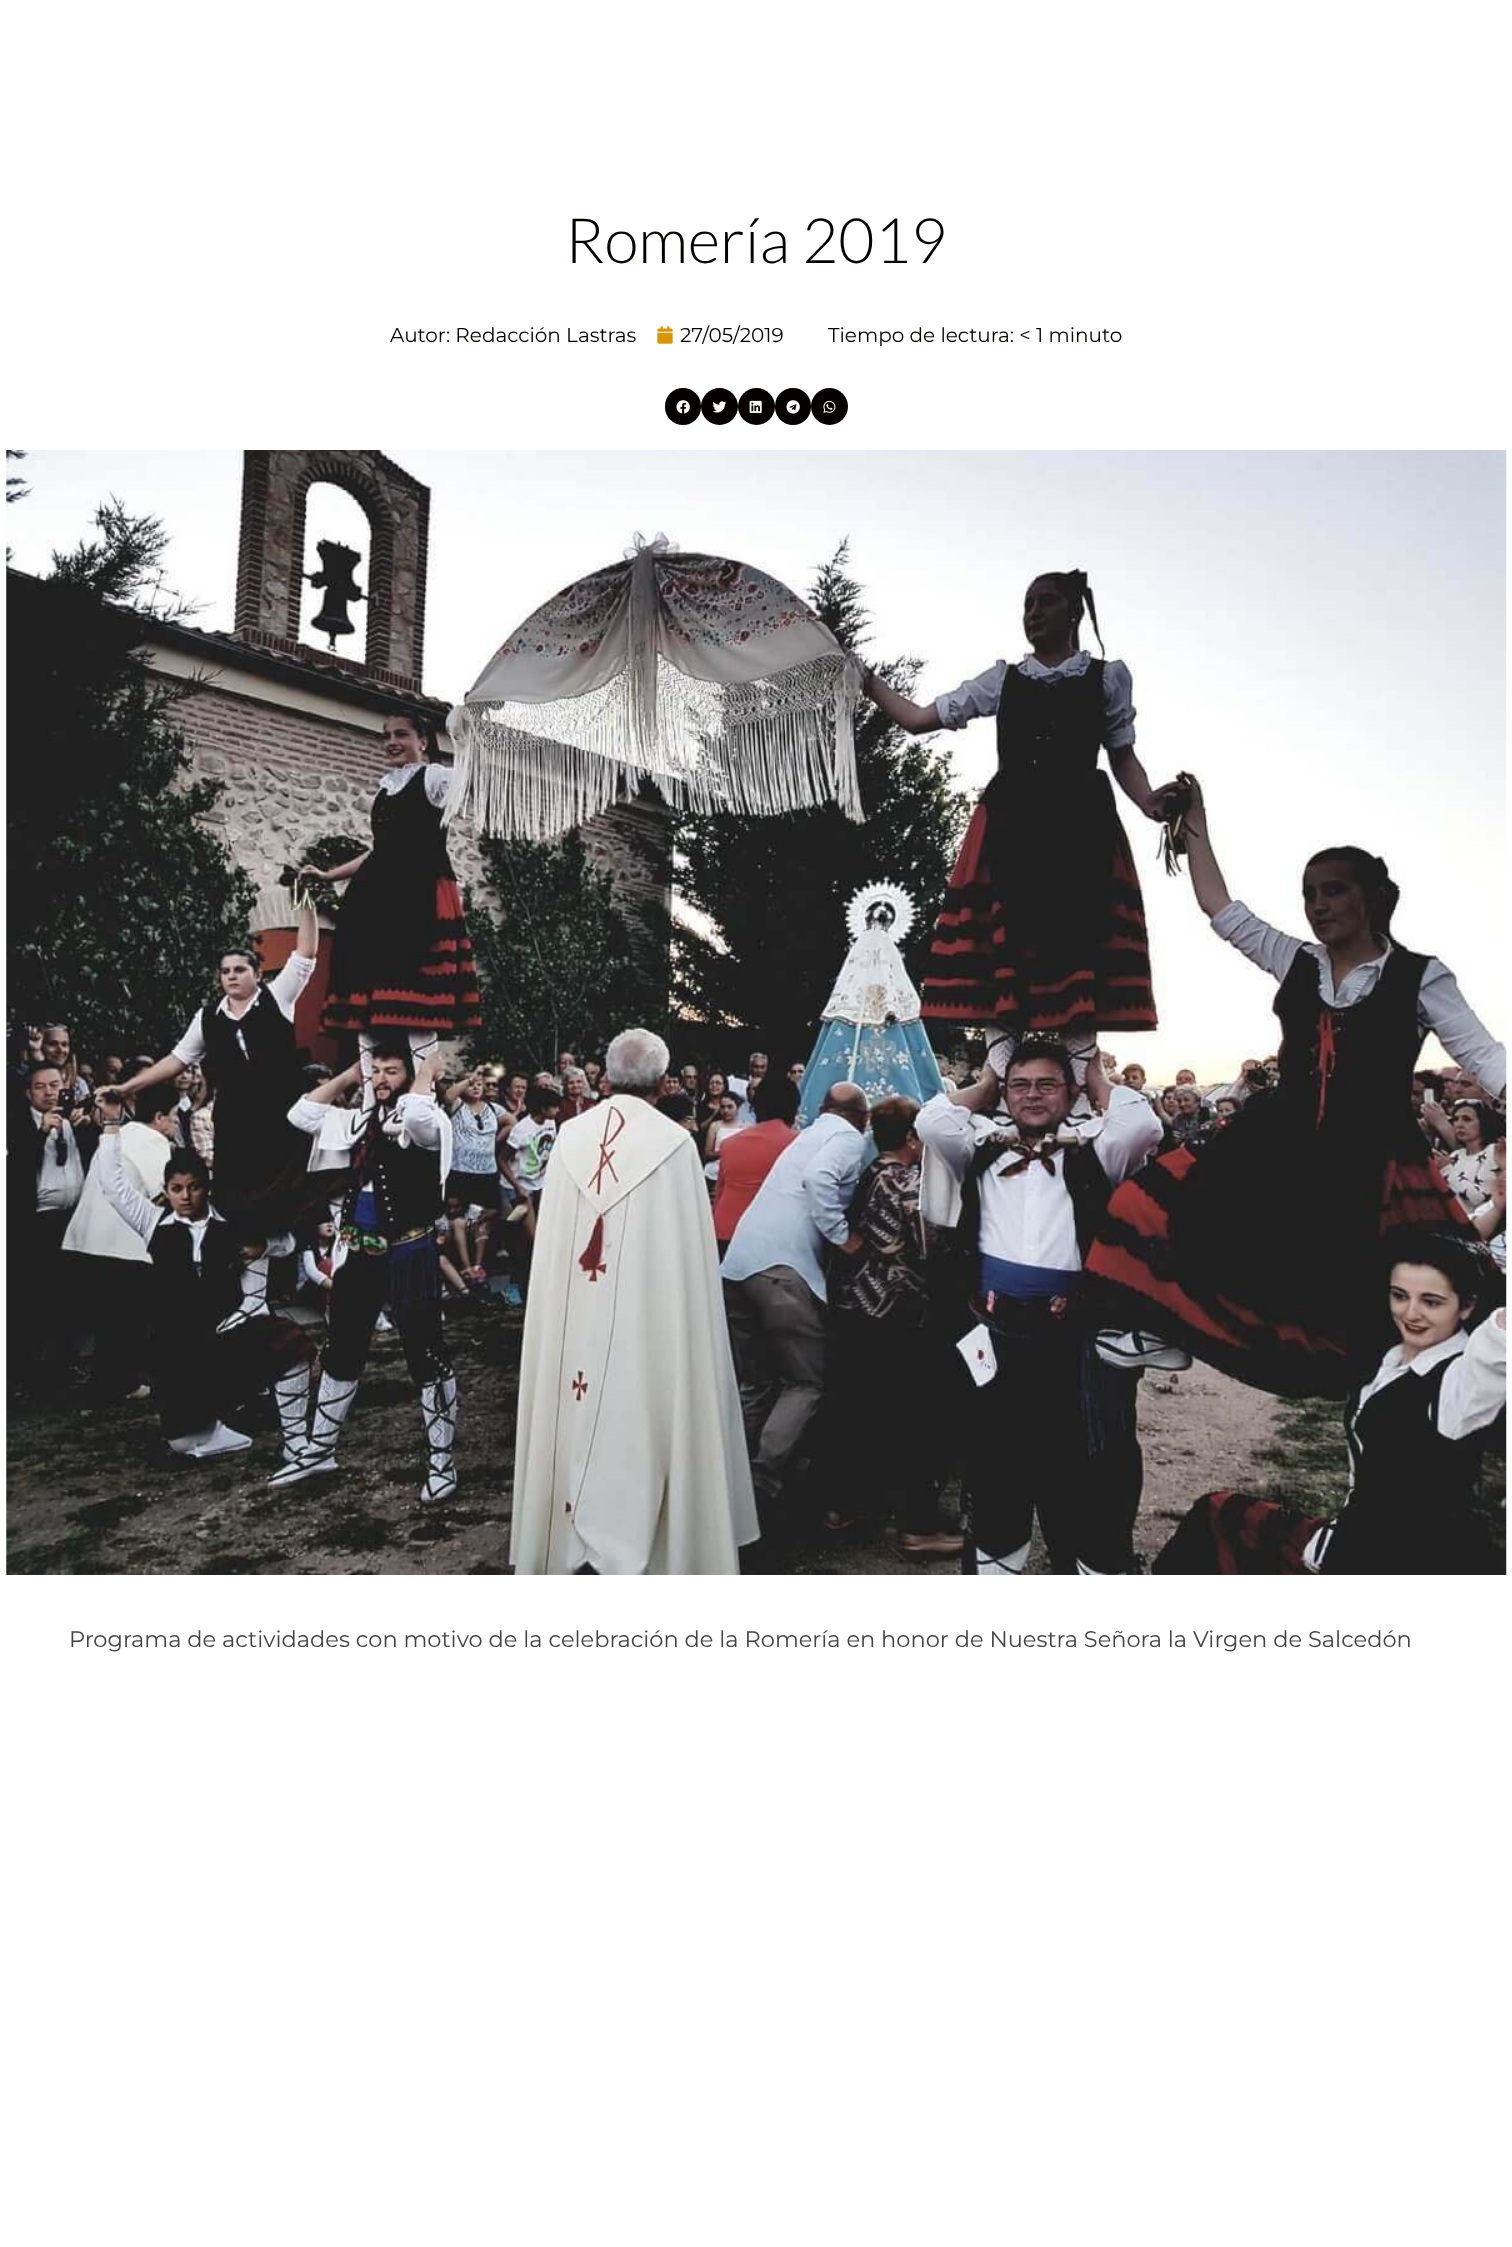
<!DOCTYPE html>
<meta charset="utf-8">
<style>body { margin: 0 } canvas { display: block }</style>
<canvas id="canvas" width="1512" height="2247"></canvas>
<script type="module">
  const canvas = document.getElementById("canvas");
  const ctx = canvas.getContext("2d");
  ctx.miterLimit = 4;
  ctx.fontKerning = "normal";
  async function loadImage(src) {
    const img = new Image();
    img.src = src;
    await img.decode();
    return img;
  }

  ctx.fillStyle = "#ffffff";
  ctx.fillRect(0, 0, 1512, 2247);
  ctx.font = "300 62.5px Lato";
  ctx.fillStyle = "#050000";
  ctx.fillText("Romería 2019", 565, 263);
  ctx.font = "20px Montserrat";
  ctx.fillText("Autor: Redacción Lastras", 390, 342);
  ctx.drawImage(await loadImage("img1.png"), 657, 326, 16, 18);
  ctx.fillText("27/05/2019", 680, 342);
  ctx.fillText("Tiempo de lectura: < 1 minuto", 828, 342);
  ctx.fillStyle = "#070000";
  ctx.beginPath();
  ctx.roundRect(665, 388, 36, 37, 18);
  ctx.fill();
  ctx.drawImage(await loadImage("img2.png"), 676, 400, 14, 14);
  ctx.beginPath();
  ctx.arc(719.5, 406.5, 18.5, 0, Math.PI * 2);
  ctx.fill();
  ctx.drawImage(await loadImage("img3.png"), 713, 401, 13, 12);
  ctx.beginPath();
  ctx.arc(756.5, 406.5, 18.5, 0, Math.PI * 2);
  ctx.fill();
  ctx.drawImage(await loadImage("img4.png"), 749, 400, 13, 13);
  ctx.beginPath();
  ctx.roundRect(775, 388, 36, 37, 18);
  ctx.fill();
  ctx.drawImage(await loadImage("img5.png"), 786, 400, 14, 14);
  ctx.beginPath();
  ctx.arc(829.5, 406.5, 18.5, 0, Math.PI * 2);
  ctx.fill();
  ctx.drawImage(await loadImage("img6.png"), 823, 400, 13, 13);
  ctx.drawImage(await loadImage("img7.png"), 6, 450, 1501, 1125);
  ctx.font = "22.5px Montserrat";
  ctx.fillStyle = "#444444";
  ctx.fillText("Programa de actividades con motivo de la celebración de la Romería en honor de Nuestra Señora la Virgen de Salcedón", 69, 1647);
</script>
